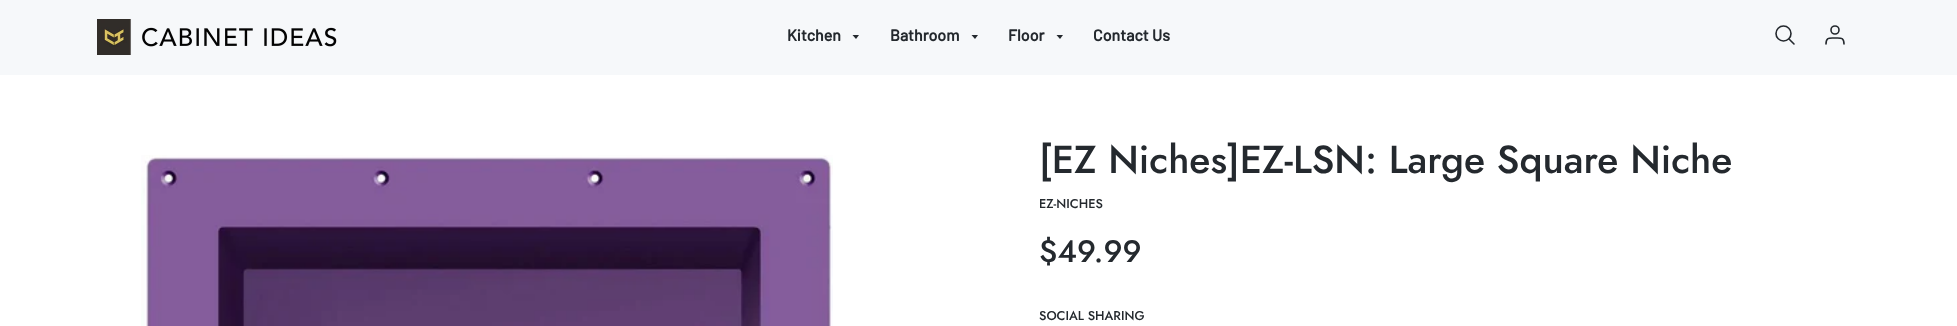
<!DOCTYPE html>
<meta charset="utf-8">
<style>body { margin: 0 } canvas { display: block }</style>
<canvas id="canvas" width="1957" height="326"></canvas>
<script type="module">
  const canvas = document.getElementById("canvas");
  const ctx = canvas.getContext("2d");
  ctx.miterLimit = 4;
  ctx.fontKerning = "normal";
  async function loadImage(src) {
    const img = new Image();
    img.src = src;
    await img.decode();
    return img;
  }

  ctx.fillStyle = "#f6f8fa";
  ctx.fillRect(0, 0, 1957, 326);
  ctx.drawImage(await loadImage("img1.png"), 97, 19, 240, 36);
  ctx.font = "bold 16px Barlow";
  ctx.fillStyle = "#24292e";
  ctx.fillText("Kitchen", 787, 41);
  ctx.beginPath();
  ctx.moveTo(852.5, 35);
  ctx.lineTo(856, 39);
  ctx.lineTo(859, 35);
  ctx.closePath();
  ctx.fill();
  ctx.fillText("Bathroom", 890, 41);
  ctx.beginPath();
  ctx.moveTo(971.5, 35);
  ctx.lineTo(975, 39);
  ctx.lineTo(978, 35);
  ctx.closePath();
  ctx.fill();
  ctx.fillText("Floor", 1008, 41);
  ctx.beginPath();
  ctx.moveTo(1056.5, 35);
  ctx.lineTo(1060, 39);
  ctx.lineTo(1063, 35);
  ctx.closePath();
  ctx.fill();
  ctx.fillText("Contact Us", 1093, 41);
  ctx.beginPath();
  ctx.arc(1783.5, 33.5, 7.5, 0, Math.PI * 2);
  ctx.strokeStyle = "#24292e";
  ctx.lineWidth = 1.6;
  ctx.stroke();
  ctx.beginPath();
  ctx.moveTo(1794, 44);
  ctx.lineTo(1789, 39);
  ctx.moveTo(1844, 44);
  ctx.bezierCurveTo(1844, 37, 1840.5, 38, 1835, 38);
  ctx.bezierCurveTo(1829.5, 38, 1826, 37, 1826, 44);
  ctx.lineCap = "round";
  ctx.lineJoin = "round";
  ctx.stroke();
  ctx.beginPath();
  ctx.arc(1835, 30, 4, 0, Math.PI * 2);
  ctx.stroke();
  ctx.fillStyle = "#ffffff";
  ctx.fillRect(0, 75, 1957, 251);
  ctx.drawImage(await loadImage("img2.png"), 141, 155, 692, 171);
  ctx.font = "500 39.1px Jost";
  ctx.fillStyle = "#24292e";
  ctx.fillText("[EZ Niches]EZ-LSN: Large Square Niche", 1039, 173);
  ctx.font = "500 12.75px Jost";
  ctx.fillText("EZ-NICHES", 1039, 208);
  ctx.font = "500 31px Jost";
  ctx.fillText("$49.99", 1039, 262);
  ctx.font = "500 12.75px Jost";
  ctx.fillText("SOCIAL SHARING", 1039, 320);
</script>
